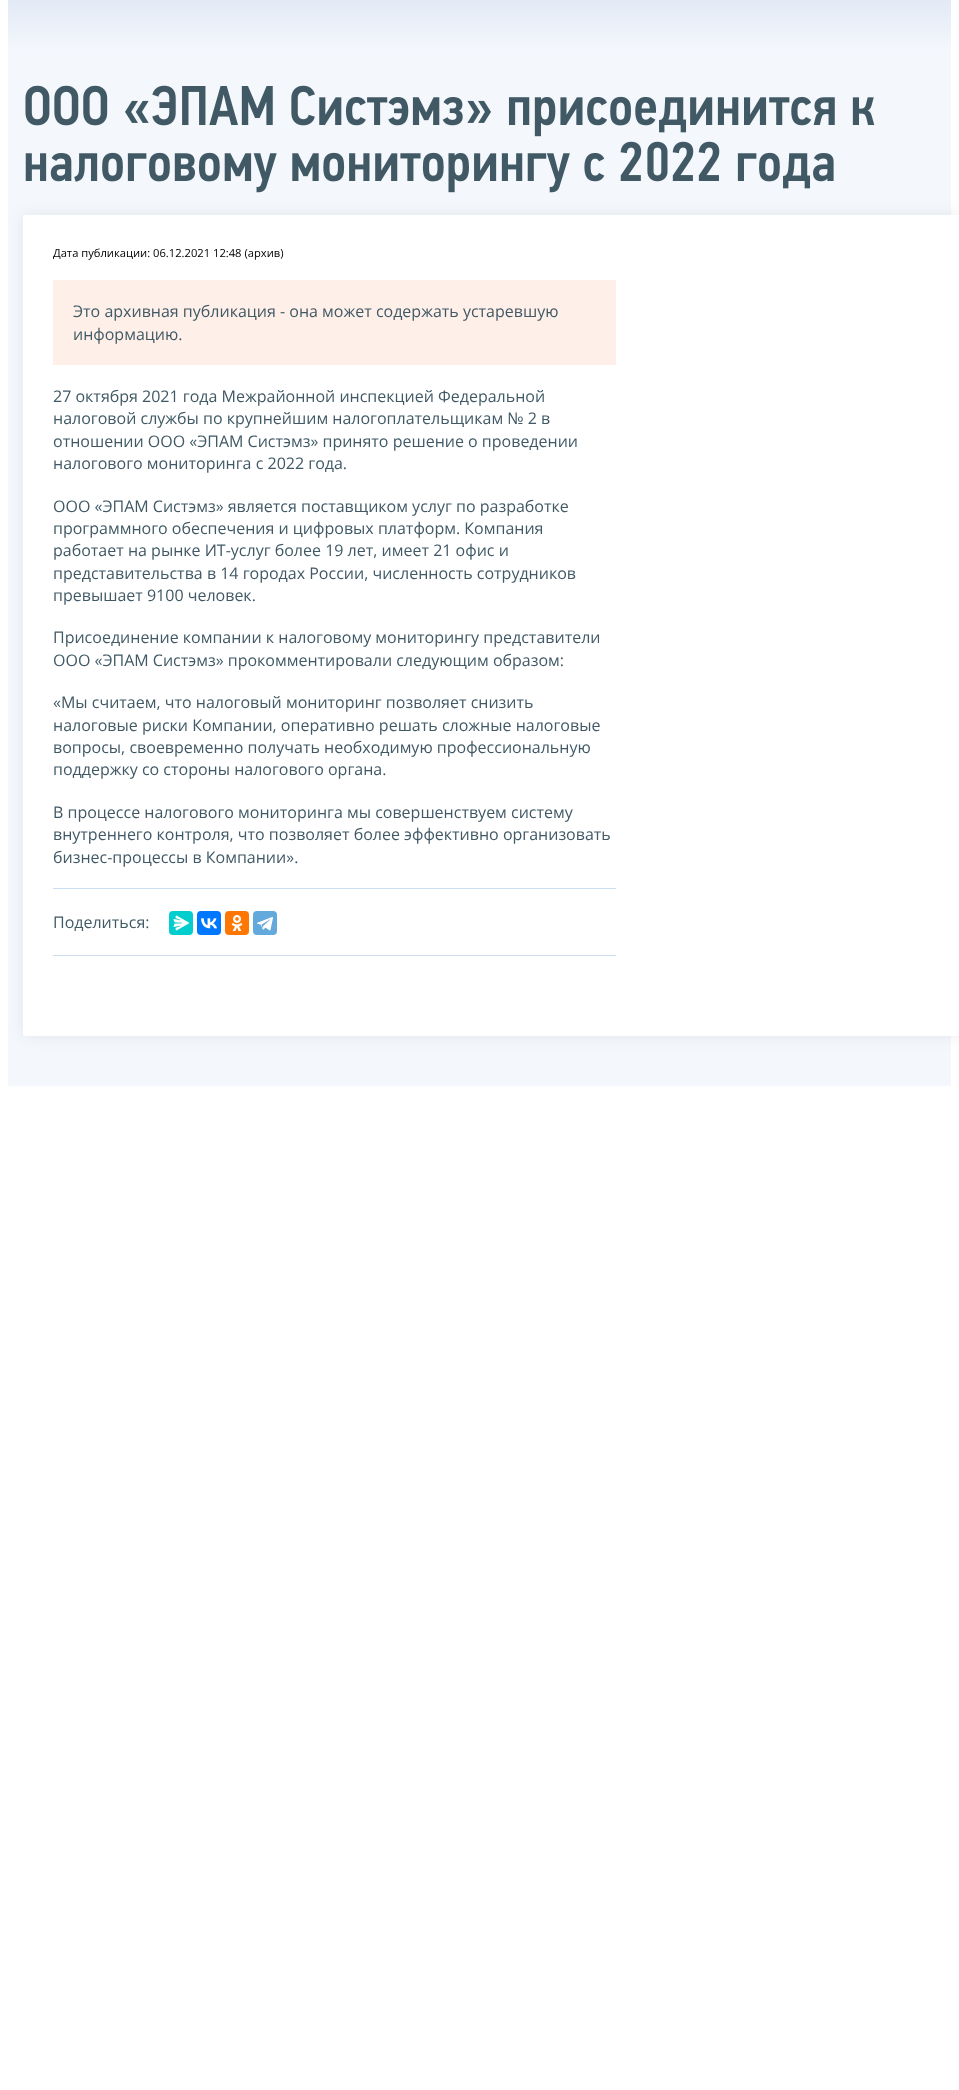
<!DOCTYPE html>
<meta charset="utf-8">
<style>body { margin: 0 } canvas { display: block }</style>
<canvas id="canvas" width="959" height="2090"></canvas>
<script type="module">
  const canvas = document.getElementById("canvas");
  const ctx = canvas.getContext("2d");
  ctx.miterLimit = 4;
  ctx.fontKerning = "normal";
  async function loadImage(src) {
    const img = new Image();
    img.src = src;
    await img.decode();
    return img;
  }
  let gradient;

  ctx.fillStyle = "#ffffff";
  ctx.fillRect(0, 0, 959, 2090);
  ctx.fillStyle = "#f4f7fc";
  ctx.fillRect(8, 50, 943, 1036);
  gradient = ctx.createLinearGradient(480, 0, 480, 50);
  gradient.addColorStop(0, "#e2eaf6");
  gradient.addColorStop(1, "#f4f7fc");
  ctx.fillStyle = gradient;
  ctx.fillRect(8, 0, 943, 50);
  ctx.drawImage(await loadImage("img1.png"), 25, 85, 850, 52);
  ctx.fillStyle = "rgba(0, 0, 0, 0.07)";
  ctx.filter = "blur(7.5px)";
  ctx.beginPath();
  ctx.roundRect(23, 215, 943, 821, 2);
  ctx.fill();
  ctx.filter = "none";
  ctx.drawImage(await loadImage("img2.png"), 25, 141, 809, 52);
  ctx.fillStyle = "#ffffff";
  ctx.beginPath();
  ctx.roundRect(23, 215, 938, 821, 2);
  ctx.fill();
  ctx.font = "11.2px Open Sans";
  ctx.fillStyle = "#000000";
  ctx.fillText("Дата публикации: 06.12.2021 12:48 (архив)", 53, 257);
  ctx.fillStyle = "#feefe9";
  ctx.fillRect(53, 280, 563, 85);
  ctx.font = "16px Open Sans";
  ctx.fillStyle = "#405965";
  ctx.fillText("Это архивная публикация - она может содержать устаревшую", 73, 317);
  ctx.fillText("информацию.", 73, 340);
  ctx.fillText("27 октября 2021 года Межрайонной инспекцией Федеральной", 53, 402);
  ctx.fillText("налоговой службы по крупнейшим налогоплательщикам № 2 в", 53, 424);
  ctx.fillText("отношении ООО «ЭПАМ Систэмз» принято решение о проведении", 53, 447);
  ctx.fillText("налогового мониторинга с 2022 года.", 53, 469);
  ctx.fillText("ООО «ЭПАМ Систэмз» является поставщиком услуг по разработке", 53, 512);
  ctx.fillText("программного обеспечения и цифровых платформ. Компания", 53, 534);
  ctx.fillText("работает на рынке ИТ-услуг более 19 лет, имеет 21 офис и", 53, 556);
  ctx.fillText("представительства в 14 городах России, численность сотрудников", 53, 579);
  ctx.fillText("превышает 9100 человек.", 53, 601);
  ctx.fillText("Присоединение компании к налоговому мониторингу представители", 53, 643);
  ctx.fillText("ООО «ЭПАМ Систэмз» прокомментировали следующим образом:", 53, 666);
  ctx.fillText("«Мы считаем, что налоговый мониторинг позволяет снизить", 53, 708);
  ctx.fillText("налоговые риски Компании, оперативно решать сложные налоговые", 53, 731);
  ctx.fillText("вопросы, своевременно получать необходимую профессиональную", 53, 753);
  ctx.fillText("поддержку со стороны налогового органа.", 53, 775);
  ctx.fillText("В процессе налогового мониторинга мы совершенствуем систему", 53, 818);
  ctx.fillText("внутреннего контроля, что позволяет более эффективно организовать", 53, 840);
  ctx.fillText("бизнес-процессы в Компании».", 53, 863);
  ctx.fillStyle = "#caddf2";
  ctx.fillRect(53, 888, 563, 1);
  ctx.fillRect(53, 955, 563, 1);
  ctx.fillStyle = "#405965";
  ctx.fillText("Поделиться:", 53, 928);
  ctx.fillStyle = "#03cece";
  ctx.beginPath();
  ctx.roundRect(169, 911, 24, 24, 4);
  ctx.fill();
  ctx.drawImage(await loadImage("img3.png"), 173, 915, 16, 16);
  ctx.fillStyle = "#0077ff";
  ctx.beginPath();
  ctx.roundRect(197, 911, 24, 24, 4);
  ctx.fill();
  ctx.drawImage(await loadImage("img4.png"), 201, 918, 16, 11);
  ctx.fillStyle = "#ff7700";
  ctx.beginPath();
  ctx.roundRect(225, 911, 24, 24, 4);
  ctx.fill();
  ctx.drawImage(await loadImage("img5.png"), 231, 915, 12, 16);
  ctx.fillStyle = "#64a9dc";
  ctx.beginPath();
  ctx.roundRect(253, 911, 24, 24, 4);
  ctx.fill();
  ctx.drawImage(await loadImage("img6.png"), 257, 917, 16, 14);
</script>
